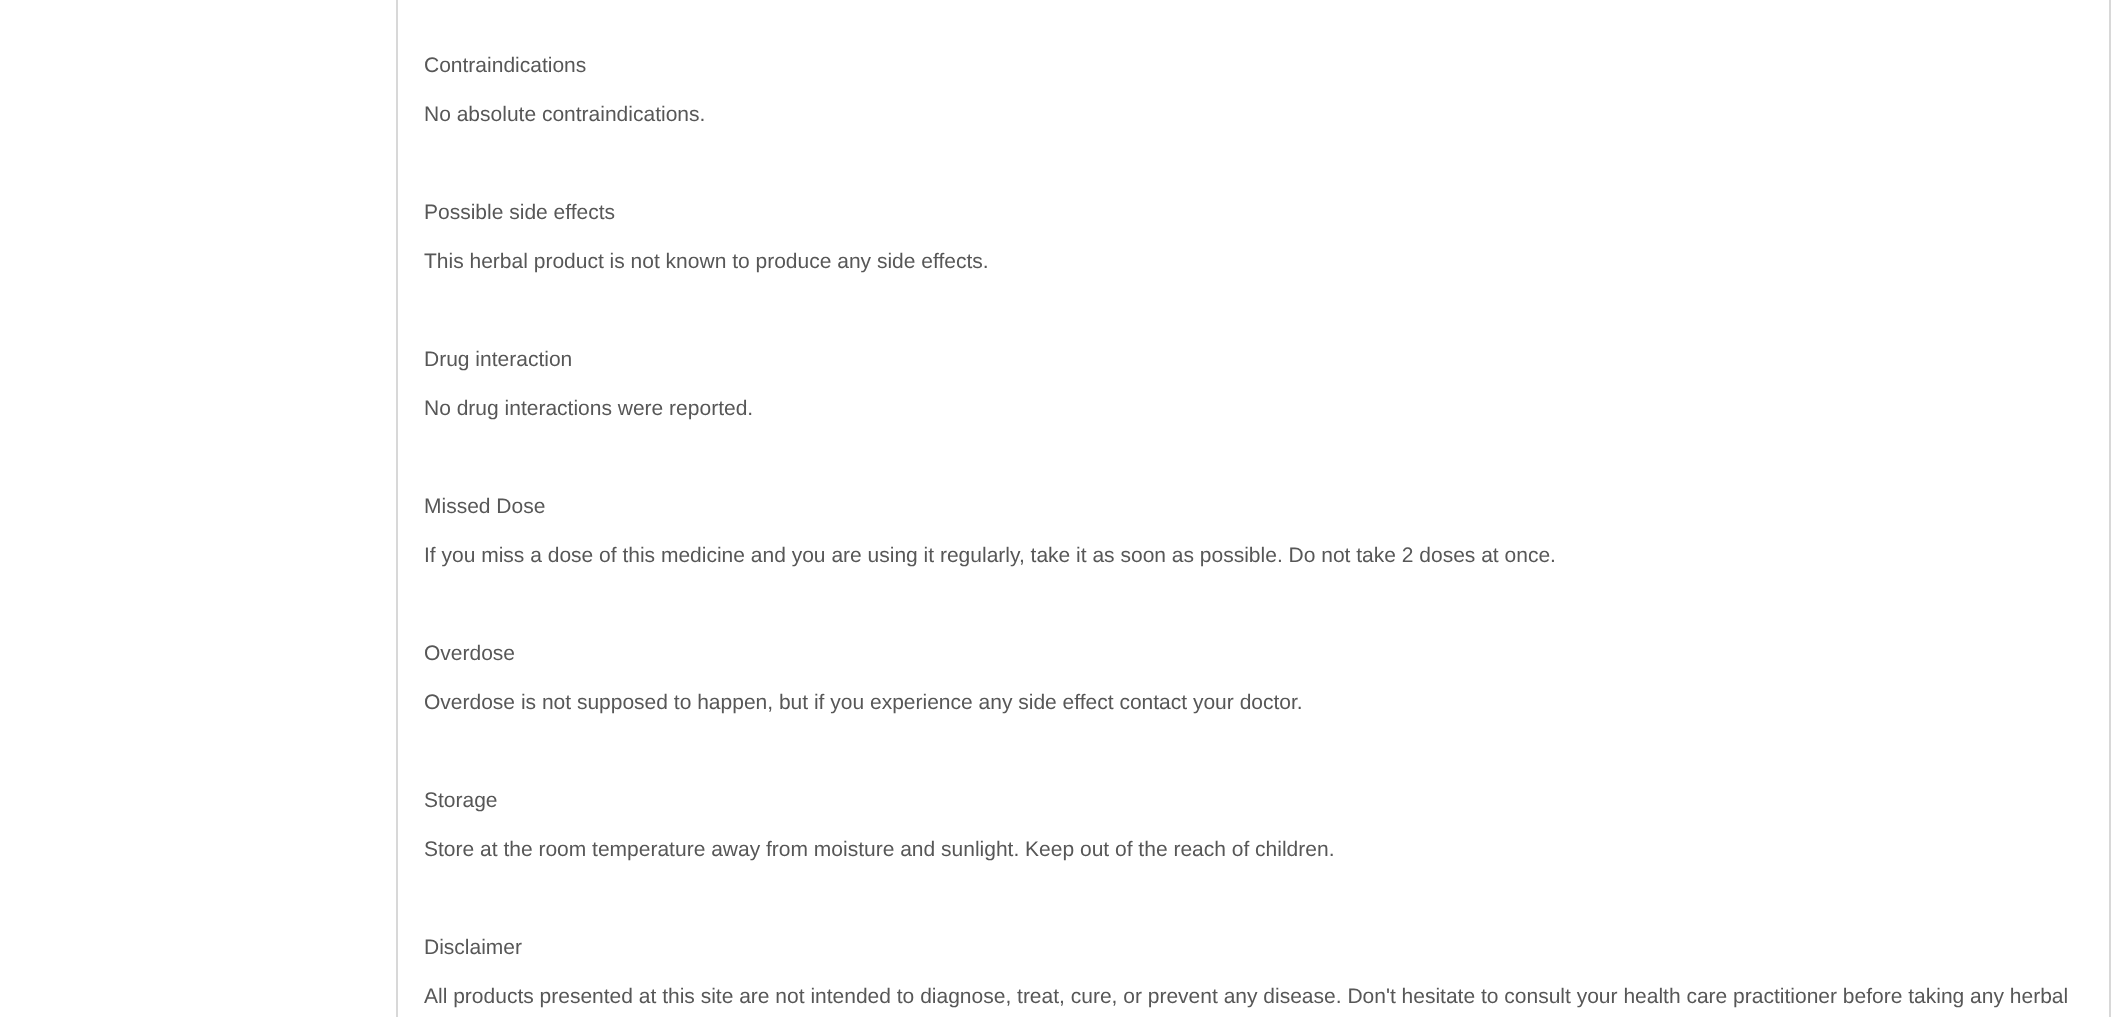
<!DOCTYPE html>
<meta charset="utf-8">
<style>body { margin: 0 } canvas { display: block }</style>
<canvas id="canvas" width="2120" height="1017"></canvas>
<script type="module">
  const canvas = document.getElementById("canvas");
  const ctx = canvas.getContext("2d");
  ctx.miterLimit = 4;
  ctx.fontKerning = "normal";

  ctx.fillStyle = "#ffffff";
  ctx.fillRect(0, 0, 2120, 1017);
  ctx.strokeStyle = "#d8d8d8";
  ctx.lineWidth = 2;
  ctx.strokeRect(397, -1, 1713, 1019);
  ctx.font = "21px Arimo";
  ctx.fillStyle = "#575757";
  ctx.fillText("Contraindications", 424, 72);
  ctx.fillText("No absolute contraindications.", 424, 121);
  ctx.fillText("Possible side effects", 424, 219);
  ctx.fillText("This herbal product is not known to produce any side effects.", 424, 268);
  ctx.fillText("Drug interaction", 424, 366);
  ctx.fillText("No drug interactions were reported.", 424, 415);
  ctx.fillText("Missed Dose", 424, 513);
  ctx.fillText("If you miss a dose of this medicine and you are using it regularly, take it as soon as possible. Do not take 2 doses at once.", 424, 562);
  ctx.fillText("Overdose", 424, 660);
  ctx.fillText("Overdose is not supposed to happen, but if you experience any side effect contact your doctor.", 424, 709);
  ctx.fillText("Storage", 424, 807);
  ctx.fillText("Store at the room temperature away from moisture and sunlight. Keep out of the reach of children.", 424, 856);
  ctx.fillText("Disclaimer", 424, 954);
  ctx.fillText("All products presented at this site are not intended to diagnose, treat, cure, or prevent any disease. Don't hesitate to consult your health care practitioner before taking any herbal", 424, 1003);
</script>
